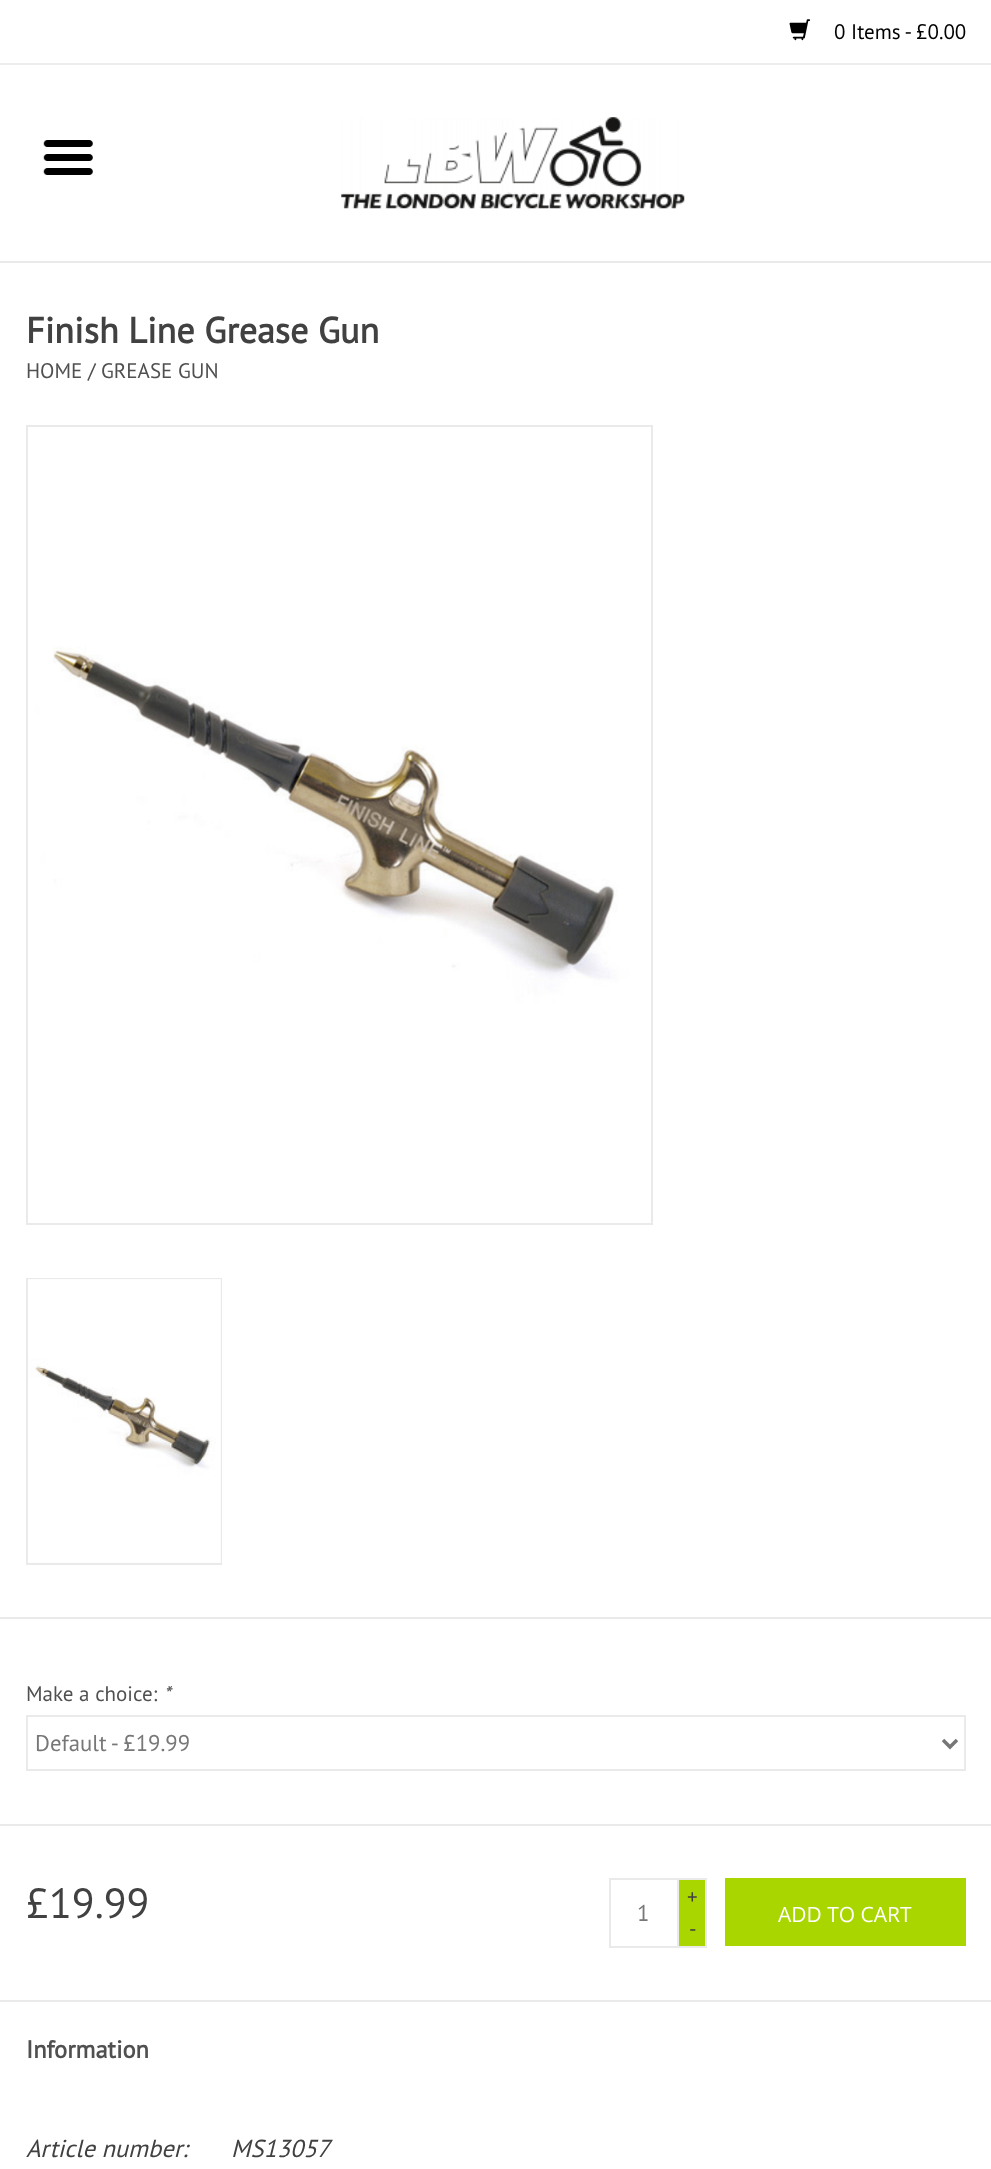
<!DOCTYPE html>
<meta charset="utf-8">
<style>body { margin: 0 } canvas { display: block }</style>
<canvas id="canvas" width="991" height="2169"></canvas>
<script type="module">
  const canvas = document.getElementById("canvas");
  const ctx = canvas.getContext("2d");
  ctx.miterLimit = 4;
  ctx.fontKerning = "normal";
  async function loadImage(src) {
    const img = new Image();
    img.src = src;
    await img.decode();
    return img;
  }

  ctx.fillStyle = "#ffffff";
  ctx.fillRect(0, 0, 991, 2169);
  ctx.fillStyle = "#ededed";
  ctx.fillRect(0, 63, 991, 2);
  ctx.drawImage(await loadImage("img1.png"), 789, 19, 22, 22);
  ctx.font = "21px PT Sans";
  ctx.fillStyle = "#000000";
  ctx.fillText("0 Items - £0.00", 834, 39);
  ctx.fillStyle = "#eaeaea";
  ctx.fillRect(0, 261, 991, 2);
  ctx.drawImage(await loadImage("img2.png"), 341, 117, 344, 92);
  ctx.drawImage(await loadImage("img3.png"), 43, 140, 50, 35);
  ctx.font = "bold 36.1px PT Sans";
  ctx.fillStyle = "#414141";
  ctx.fillText("Finish Line Grease Gun", 26, 343);
  ctx.font = "21px PT Sans";
  ctx.fillStyle = "#505050";
  ctx.fillText("HOME / GREASE GUN", 26, 378);
  ctx.strokeStyle = "#eaeaea";
  ctx.lineWidth = 2;
  ctx.strokeRect(27, 426, 625, 798);
  ctx.drawImage(await loadImage("img4.png"), 28, 427, 623, 796);
  ctx.strokeRect(27, 1279, 194, 285);
  ctx.fillStyle = "#f7f7f7";
  ctx.fillRect(28, 1279, 193, 284);
  ctx.drawImage(await loadImage("img5.png"), 28, 1279, 193, 284);
  ctx.fillStyle = "#eaeaea";
  ctx.fillRect(0, 1617, 991, 2);
  ctx.fillStyle = "#505050";
  ctx.fillText("Make a choice:", 26, 1701);
  ctx.font = "italic 21px PT Sans";
  ctx.fillText("*", 163, 1701);
  ctx.strokeRect(27, 1716, 938, 54);
  ctx.beginPath();
  ctx.moveTo(943, 1740);
  ctx.lineTo(950, 1747);
  ctx.lineTo(957, 1740);
  ctx.strokeStyle = "#777777";
  ctx.lineWidth = 3.5;
  ctx.stroke();
  ctx.font = "22.75px PT Sans";
  ctx.fillStyle = "#777777";
  ctx.fillText("Default - £19.99", 35, 1751);
  ctx.fillStyle = "#eaeaea";
  ctx.fillRect(0, 1824, 991, 2);
  ctx.font = "42px PT Sans";
  ctx.fillStyle = "#414141";
  ctx.fillText("£19.99", 26, 1918);
  ctx.strokeStyle = "#eaeaea";
  ctx.lineWidth = 2;
  ctx.strokeRect(610, 1879, 68, 68);
  ctx.font = "22.75px PT Sans";
  ctx.fillStyle = "#777777";
  ctx.fillText("1", 637, 1921);
  ctx.fillStyle = "#aad600";
  ctx.fillRect(679, 1880, 26, 66);
  ctx.fillStyle = "#eaeaea";
  ctx.fillRect(679, 1878, 28, 2);
  ctx.fillRect(705, 1878, 2, 70);
  ctx.fillRect(679, 1946, 28, 2);
  ctx.font = "21px PT Sans";
  ctx.fillStyle = "#414141";
  ctx.fillText("+", 687, 1904);
  ctx.fillText("-", 689, 1936);
  ctx.fillStyle = "#aad600";
  ctx.fillRect(725, 1878, 241, 68);
  ctx.font = "21px Open Sans";
  ctx.fillStyle = "#ffffff";
  ctx.fillText("ADD TO CART", 778, 1922);
  ctx.fillStyle = "#eaeaea";
  ctx.fillRect(0, 2000, 991, 2);
  ctx.font = "bold 24.5px PT Sans";
  ctx.fillStyle = "#505050";
  ctx.fillText("Information", 26, 2058);
  ctx.font = "italic 24.5px PT Sans";
  ctx.fillStyle = "#414141";
  ctx.fillText("Article number:", 26, 2157);
  ctx.fillText("MS13057", 231, 2157);
</script>
